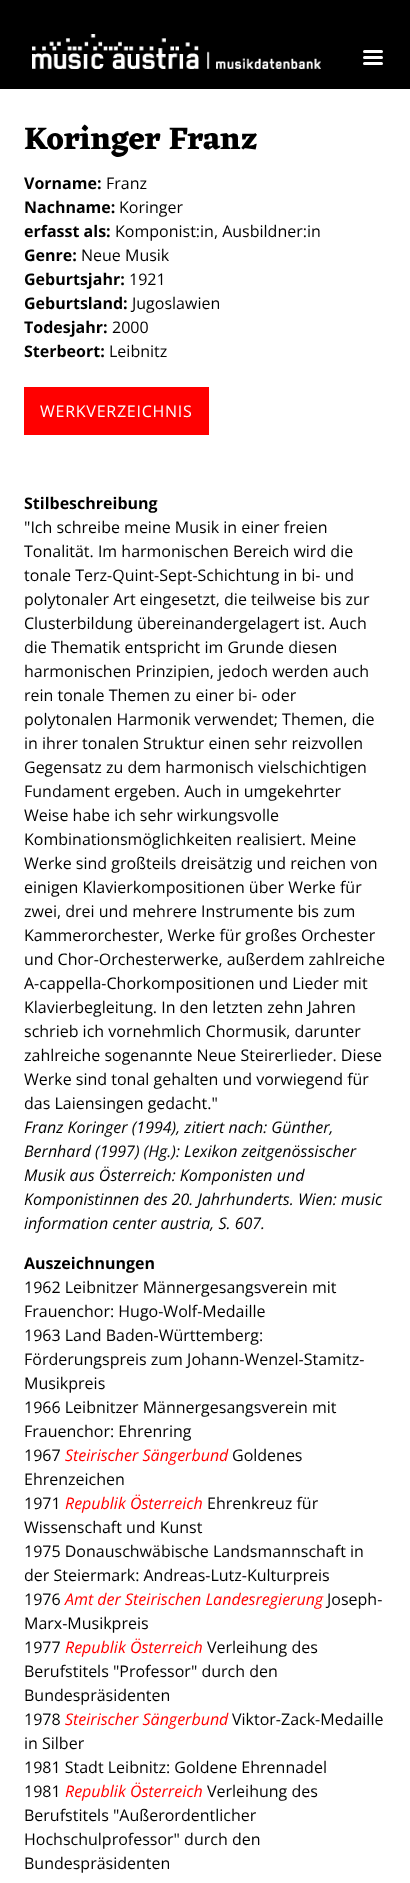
<!DOCTYPE html>
<meta charset="utf-8">
<style>body { margin: 0 } canvas { display: block }</style>
<canvas id="canvas" width="410" height="1883"></canvas>
<script type="module">
  const canvas = document.getElementById("canvas");
  const ctx = canvas.getContext("2d");
  ctx.miterLimit = 4;
  ctx.fontKerning = "normal";
  async function loadImage(src) {
    const img = new Image();
    img.src = src;
    await img.decode();
    return img;
  }

  ctx.fillStyle = "#ffffff";
  ctx.fillRect(0, 0, 410, 1883);
  ctx.fillStyle = "#000000";
  ctx.fillRect(0, 0, 410, 89);
  ctx.drawImage(await loadImage("img1.png"), 32, 34, 289, 35);
  ctx.fillStyle = "#ffffff";
  ctx.beginPath();
  ctx.roundRect(363, 50, 20, 3, 1.5);
  ctx.fill();
  ctx.beginPath();
  ctx.roundRect(363, 56, 20, 3, 1.5);
  ctx.fill();
  ctx.beginPath();
  ctx.roundRect(363, 62, 20, 3, 1.5);
  ctx.fill();
  ctx.font = "bold 32px Eczar";
  ctx.fillStyle = "#000000";
  ctx.fillText("Koringer Franz", 24, 149);
  ctx.font = "bold 16px Open Sans";
  ctx.fillText("Vorname:", 24, 189);
  ctx.font = "16px Open Sans";
  ctx.fillText("Franz", 106, 189);
  ctx.font = "bold 16px Open Sans";
  ctx.fillText("Nachname:", 24, 213);
  ctx.font = "16px Open Sans";
  ctx.fillText("Koringer", 119, 213);
  ctx.font = "bold 16px Open Sans";
  ctx.fillText("erfasst als:", 24, 237);
  ctx.font = "16px Open Sans";
  ctx.fillText("Komponist:in, Ausbildner:in", 115, 237);
  ctx.font = "bold 16px Open Sans";
  ctx.fillText("Genre:", 24, 261);
  ctx.font = "16px Open Sans";
  ctx.fillText("Neue Musik", 81, 261);
  ctx.font = "bold 16px Open Sans";
  ctx.fillText("Geburtsjahr:", 24, 285);
  ctx.font = "16px Open Sans";
  ctx.fillText("1921", 129, 285);
  ctx.font = "bold 16px Open Sans";
  ctx.fillText("Geburtsland:", 24, 309);
  ctx.font = "16px Open Sans";
  ctx.fillText("Jugoslawien", 132, 309);
  ctx.font = "bold 16px Open Sans";
  ctx.fillText("Todesjahr:", 24, 333);
  ctx.font = "16px Open Sans";
  ctx.fillText("2000", 112, 333);
  ctx.font = "bold 16px Open Sans";
  ctx.fillText("Sterbeort:", 24, 357);
  ctx.font = "16px Open Sans";
  ctx.fillText("Leibnitz", 109, 357);
  ctx.fillStyle = "#ff0000";
  ctx.fillRect(24, 387, 185, 48);
  ctx.letterSpacing = "0.75px";
  ctx.fillStyle = "#ffffff";
  ctx.fillText("WERKVERZEICHNIS", 40, 417);
  ctx.letterSpacing = "0px";
  ctx.font = "bold 16px Open Sans";
  ctx.fillStyle = "#000000";
  ctx.fillText("Stilbeschreibung", 24, 509);
  ctx.font = "16px Open Sans";
  ctx.fillText("\"Ich schreibe meine Musik in einer freien", 24, 533);
  ctx.fillText("Tonalität. Im harmonischen Bereich wird die", 24, 557);
  ctx.fillText("tonale Terz-Quint-Sept-Schichtung in bi- und", 24, 581);
  ctx.fillText("polytonaler Art eingesetzt, die teilweise bis zur", 24, 605);
  ctx.fillText("Clusterbildung übereinandergelagert ist. Auch", 24, 629);
  ctx.fillText("die Thematik entspricht im Grunde diesen", 24, 653);
  ctx.fillText("harmonischen Prinzipien, jedoch werden auch", 24, 677);
  ctx.fillText("rein tonale Themen zu einer bi- oder", 24, 701);
  ctx.fillText("polytonalen Harmonik verwendet; Themen, die", 24, 725);
  ctx.fillText("in ihrer tonalen Struktur einen sehr reizvollen", 24, 749);
  ctx.fillText("Gegensatz zu dem harmonisch vielschichtigen", 24, 773);
  ctx.fillText("Fundament ergeben. Auch in umgekehrter", 24, 797);
  ctx.fillText("Weise habe ich sehr wirkungsvolle", 24, 821);
  ctx.fillText("Kombinationsmöglichkeiten realisiert. Meine", 24, 845);
  ctx.fillText("Werke sind großteils dreisätzig und reichen von", 24, 869);
  ctx.fillText("einigen Klavierkompositionen über Werke für", 24, 893);
  ctx.fillText("zwei, drei und mehrere Instrumente bis zum", 24, 917);
  ctx.fillText("Kammerorchester, Werke für großes Orchester", 24, 941);
  ctx.fillText("und Chor-Orchesterwerke, außerdem zahlreiche", 24, 965);
  ctx.fillText("A-cappella-Chorkompositionen und Lieder mit", 24, 989);
  ctx.fillText("Klavierbegleitung. In den letzten zehn Jahren", 24, 1013);
  ctx.fillText("schrieb ich vornehmlich Chormusik, darunter", 24, 1037);
  ctx.fillText("zahlreiche sogenannte Neue Steirerlieder. Diese", 24, 1061);
  ctx.fillText("Werke sind tonal gehalten und vorwiegend für", 24, 1085);
  ctx.fillText("das Laiensingen gedacht.\"", 24, 1109);
  ctx.font = "italic 16px Open Sans";
  ctx.fillText("Franz Koringer (1994), zitiert nach: Günther,", 24, 1133);
  ctx.fillText("Bernhard (1997) (Hg.): Lexikon zeitgenössischer", 24, 1157);
  ctx.fillText("Musik aus Österreich: Komponisten und", 24, 1181);
  ctx.fillText("Komponistinnen des 20. Jahrhunderts. Wien: music", 24, 1205);
  ctx.fillText("information center austria, S. 607.", 24, 1229);
  ctx.font = "bold 16px Open Sans";
  ctx.fillText("Auszeichnungen", 24, 1269);
  ctx.font = "16px Open Sans";
  ctx.fillText("1962 Leibnitzer Männergesangsverein mit", 24, 1293);
  ctx.fillText("Frauenchor: Hugo-Wolf-Medaille", 24, 1317);
  ctx.fillText("1963 Land Baden-Württemberg:", 24, 1341);
  ctx.fillText("Förderungspreis zum Johann-Wenzel-Stamitz-", 24, 1365);
  ctx.fillText("Musikpreis", 24, 1389);
  ctx.fillText("1966 Leibnitzer Männergesangsverein mit", 24, 1413);
  ctx.fillText("Frauenchor: Ehrenring", 24, 1437);
  ctx.fillText("1967", 24, 1461);
  ctx.font = "italic 16px Open Sans";
  ctx.fillStyle = "#ff0000";
  ctx.fillText("Steirischer Sängerbund", 65, 1461);
  ctx.font = "16px Open Sans";
  ctx.fillStyle = "#000000";
  ctx.fillText("Goldenes", 232, 1461);
  ctx.fillText("Ehrenzeichen", 24, 1485);
  ctx.fillText("1971", 24, 1509);
  ctx.font = "italic 16px Open Sans";
  ctx.fillStyle = "#ff0000";
  ctx.fillText("Republik Österreich", 65, 1509);
  ctx.font = "16px Open Sans";
  ctx.fillStyle = "#000000";
  ctx.fillText("Ehrenkreuz für", 207, 1509);
  ctx.fillText("Wissenschaft und Kunst", 24, 1533);
  ctx.fillText("1975 Donauschwäbische Landsmannschaft in", 24, 1557);
  ctx.fillText("der Steiermark: Andreas-Lutz-Kulturpreis", 24, 1581);
  ctx.fillText("1976", 24, 1605);
  ctx.font = "italic 16px Open Sans";
  ctx.fillStyle = "#ff0000";
  ctx.fillText("Amt der Steirischen Landesregierung", 65, 1605);
  ctx.font = "16px Open Sans";
  ctx.fillStyle = "#000000";
  ctx.fillText("Joseph-", 327, 1605);
  ctx.fillText("Marx-Musikpreis", 24, 1629);
  ctx.fillText("1977", 24, 1653);
  ctx.font = "italic 16px Open Sans";
  ctx.fillStyle = "#ff0000";
  ctx.fillText("Republik Österreich", 65, 1653);
  ctx.font = "16px Open Sans";
  ctx.fillStyle = "#000000";
  ctx.fillText("Verleihung des", 207, 1653);
  ctx.fillText("Berufstitels \"Professor\" durch den", 24, 1677);
  ctx.fillText("Bundespräsidenten", 24, 1701);
  ctx.fillText("1978", 24, 1725);
  ctx.font = "italic 16px Open Sans";
  ctx.fillStyle = "#ff0000";
  ctx.fillText("Steirischer Sängerbund", 65, 1725);
  ctx.font = "16px Open Sans";
  ctx.fillStyle = "#000000";
  ctx.fillText("Viktor-Zack-Medaille", 232, 1725);
  ctx.fillText("in Silber", 24, 1749);
  ctx.fillText("1981 Stadt Leibnitz: Goldene Ehrennadel", 24, 1773);
  ctx.fillText("1981", 24, 1797);
  ctx.font = "italic 16px Open Sans";
  ctx.fillStyle = "#ff0000";
  ctx.fillText("Republik Österreich", 65, 1797);
  ctx.font = "16px Open Sans";
  ctx.fillStyle = "#000000";
  ctx.fillText("Verleihung des", 207, 1797);
  ctx.fillText("Berufstitels \"Außerordentlicher", 24, 1821);
  ctx.fillText("Hochschulprofessor\" durch den", 24, 1845);
  ctx.fillText("Bundespräsidenten", 24, 1869);
</script>
